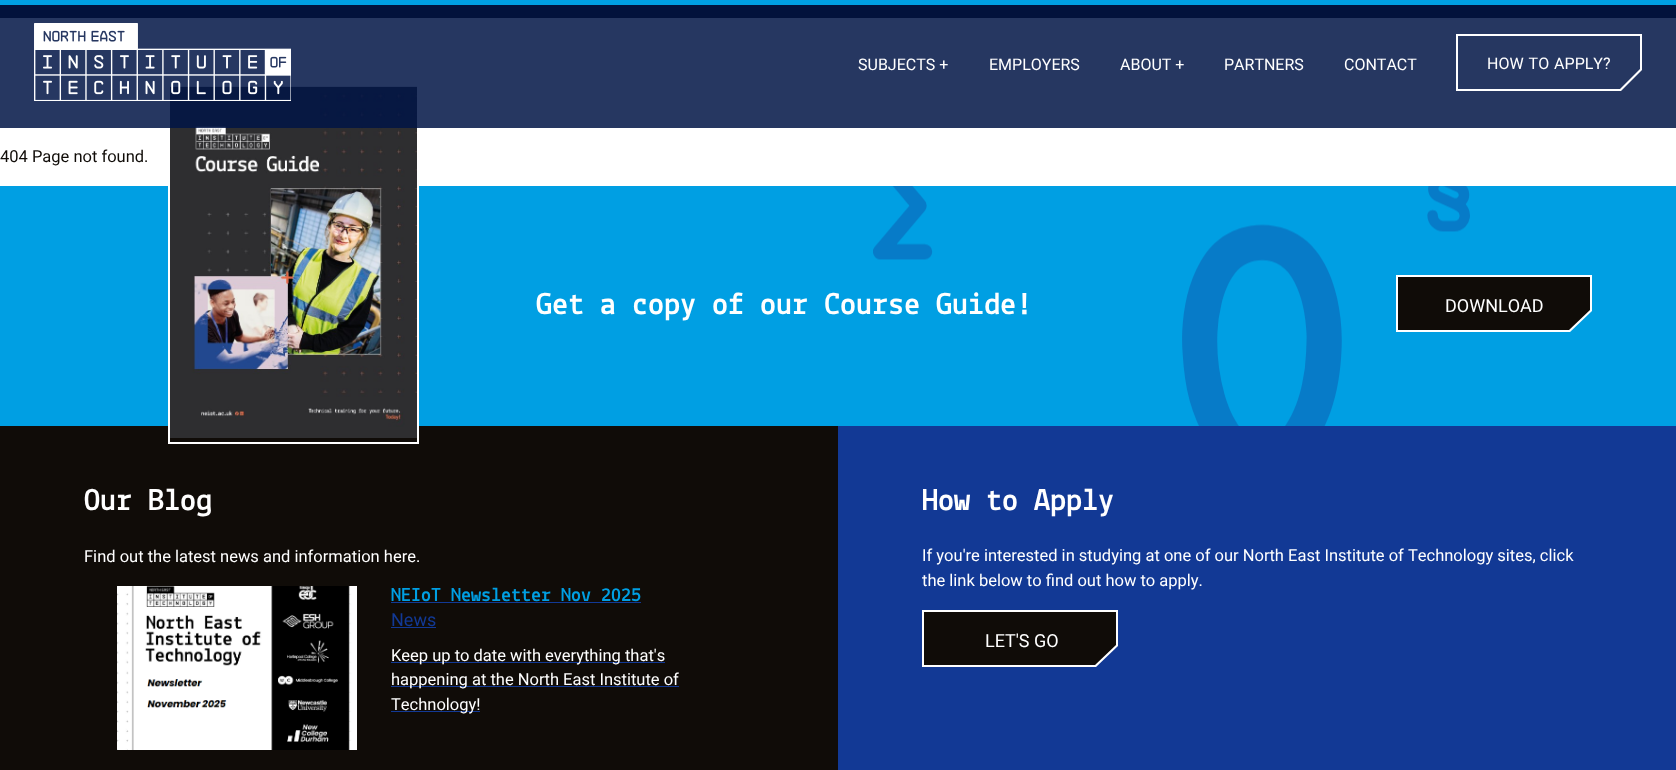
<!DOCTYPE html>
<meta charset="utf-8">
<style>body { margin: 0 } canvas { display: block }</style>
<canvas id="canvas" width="1676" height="770"></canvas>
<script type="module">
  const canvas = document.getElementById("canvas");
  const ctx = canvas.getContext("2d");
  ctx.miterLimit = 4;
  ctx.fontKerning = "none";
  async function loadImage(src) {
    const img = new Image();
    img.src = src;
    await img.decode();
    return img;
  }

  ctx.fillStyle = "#ffffff";
  ctx.fillRect(0, 0, 1676, 770);
  ctx.fillStyle = "#009fe3";
  ctx.fillRect(0, 0, 1676, 5);
  ctx.fillStyle = "#100c08";
  ctx.fillRect(0, 5, 1676, 13);
  ctx.fillStyle = "#009fe3";
  ctx.fillRect(0, 186, 1676, 240);
  ctx.fillStyle = "#100c08";
  ctx.fillRect(0, 426, 838, 344);
  ctx.strokeStyle = "#ffffff";
  ctx.lineWidth = 2;
  ctx.strokeRect(169, 85, 249, 358);
  ctx.drawImage(await loadImage("img2.png"), 170, 86, 247, 352);
  ctx.fillStyle = "rgba(0, 20, 69, 0.85)";
  ctx.fillRect(0, 5, 1676, 123);
  ctx.drawImage(await loadImage("img1.png"), 34, 23, 257, 78);
  ctx.font = "16px Roboto";
  ctx.fillStyle = "#ffffff";
  ctx.fillText("SUBJECTS +", 858, 70);
  ctx.fillText("EMPLOYERS", 989, 70);
  ctx.fillText("ABOUT +", 1120, 70);
  ctx.fillText("PARTNERS", 1224, 70);
  ctx.fillText("CONTACT", 1344, 70);
  ctx.beginPath();
  ctx.moveTo(1458, 36);
  ctx.lineTo(1458, 89);
  ctx.lineTo(1620, 89);
  ctx.lineTo(1640, 69);
  ctx.lineTo(1640, 36);
  ctx.lineTo(1458, 36);
  ctx.moveTo(1456, 34);
  ctx.lineTo(1642, 34);
  ctx.lineTo(1642, 70);
  ctx.lineTo(1621, 91);
  ctx.lineTo(1456, 91);
  ctx.closePath();
  ctx.fill();
  ctx.wordSpacing = "1px";
  ctx.fillText("HOW TO APPLY?", 1487, 69);
  ctx.wordSpacing = "0px";
  ctx.font = "16.5px Roboto";
  ctx.fillStyle = "#100c08";
  ctx.fillText("404 Page not found.", 0, 162);
  ctx.drawImage(await loadImage("img3.png"), 873, 186, 597, 240);
  ctx.font = "bold 32px Lekton";
  ctx.fillStyle = "#ffffff";
  ctx.fillText("Get a copy of our Course Guide!", 536, 314);
  ctx.fillStyle = "#100c08";
  ctx.beginPath();
  ctx.moveTo(1569, 331);
  ctx.lineTo(1397, 331);
  ctx.lineTo(1397, 276);
  ctx.lineTo(1591, 276);
  ctx.lineTo(1591, 311);
  ctx.closePath();
  ctx.fill();
  ctx.fillStyle = "#ffffff";
  ctx.beginPath();
  ctx.moveTo(1398, 277);
  ctx.lineTo(1398, 330);
  ctx.lineTo(1569, 330);
  ctx.lineTo(1590, 310);
  ctx.lineTo(1590, 277);
  ctx.lineTo(1398, 277);
  ctx.moveTo(1396, 275);
  ctx.lineTo(1592, 275);
  ctx.lineTo(1592, 311);
  ctx.lineTo(1570, 332);
  ctx.lineTo(1396, 332);
  ctx.closePath();
  ctx.fill();
  ctx.font = "18px Roboto";
  ctx.fillText("DOWNLOAD", 1445, 312);
  ctx.font = "bold 32px Lekton";
  ctx.fillText("Our Blog", 84, 510);
  ctx.font = "16.5px Roboto";
  ctx.fillText("Find out the latest news and information here.", 84, 562);
  ctx.drawImage(await loadImage("img4.png"), 117, 586, 240, 164);
  ctx.font = "bold 20px Lekton";
  ctx.fillStyle = "#009fe3";
  ctx.fillText("NEIoT Newsletter Nov 2025", 391, 601);
  ctx.fillStyle = "#123995";
  ctx.fillRect(391, 602, 250, 1);
  ctx.font = "18px Roboto";
  ctx.fillText("News", 391, 626);
  ctx.fillRect(391, 627, 45, 1);
  ctx.fillRect(391, 662, 274, 1);
  ctx.font = "16.5px Roboto";
  ctx.fillStyle = "#ffffff";
  ctx.fillText("Keep up to date with everything that's", 391, 661);
  ctx.fillStyle = "#123995";
  ctx.fillRect(391, 686, 288, 1);
  ctx.fillStyle = "#ffffff";
  ctx.fillText("happening at the North East Institute of", 391, 685);
  ctx.fillStyle = "#123995";
  ctx.fillRect(391, 711, 89, 1);
  ctx.fillStyle = "#ffffff";
  ctx.fillText("Technology!", 391, 710);
  ctx.fillStyle = "#123995";
  ctx.fillRect(838, 426, 838, 344);
  ctx.font = "bold 32px Lekton";
  ctx.fillStyle = "#ffffff";
  ctx.fillText("How to Apply", 922, 510);
  ctx.font = "16.5px Roboto";
  ctx.fillText("If you're interested in studying at one of our North East Institute of Technology sites, click", 922, 561);
  ctx.fillText("the link below to find out how to apply.", 922, 586);
  ctx.fillStyle = "#100c08";
  ctx.beginPath();
  ctx.moveTo(1095, 666);
  ctx.lineTo(923, 666);
  ctx.lineTo(923, 611);
  ctx.lineTo(1117, 611);
  ctx.lineTo(1117, 646);
  ctx.closePath();
  ctx.fill();
  ctx.fillStyle = "#ffffff";
  ctx.beginPath();
  ctx.moveTo(924, 612);
  ctx.lineTo(924, 665);
  ctx.lineTo(1095, 665);
  ctx.lineTo(1116, 645);
  ctx.lineTo(1116, 612);
  ctx.lineTo(924, 612);
  ctx.moveTo(922, 610);
  ctx.lineTo(1118, 610);
  ctx.lineTo(1118, 646);
  ctx.lineTo(1096, 667);
  ctx.lineTo(922, 667);
  ctx.closePath();
  ctx.fill();
  ctx.font = "18px Roboto";
  ctx.fillText("LET'S GO", 985, 647);
</script>
